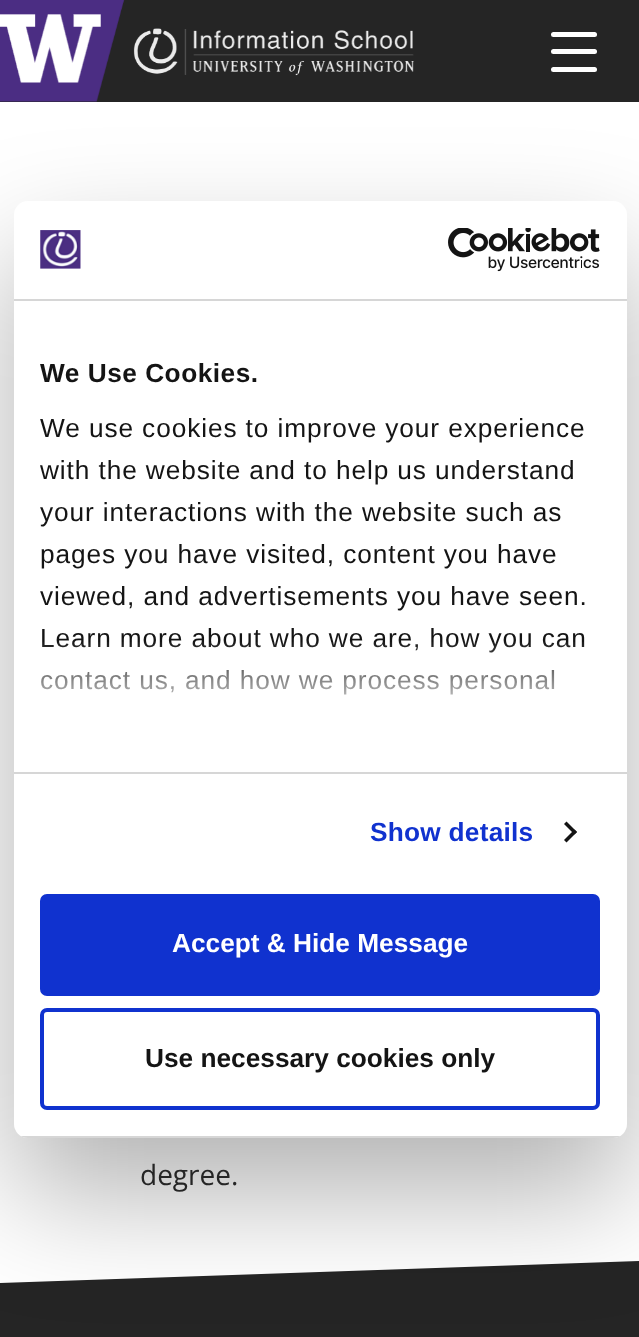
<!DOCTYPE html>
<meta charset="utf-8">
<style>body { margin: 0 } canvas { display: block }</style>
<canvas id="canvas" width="639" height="1337"></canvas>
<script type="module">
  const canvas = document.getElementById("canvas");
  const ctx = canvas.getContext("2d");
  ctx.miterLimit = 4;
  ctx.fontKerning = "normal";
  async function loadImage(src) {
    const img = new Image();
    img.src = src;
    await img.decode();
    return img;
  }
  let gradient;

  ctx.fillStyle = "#ffffff";
  ctx.fillRect(0, 0, 639, 1337);
  ctx.fillStyle = "#252525";
  ctx.fillRect(0, 0, 639, 102);
  ctx.drawImage(await loadImage("img1.png"), 0, 0, 414, 102);
  ctx.fillStyle = "#ffffff";
  ctx.beginPath();
  ctx.roundRect(551, 49, 46, 5, 2.5);
  ctx.fill();
  ctx.beginPath();
  ctx.roundRect(551, 32, 46, 5, 2.5);
  ctx.fill();
  ctx.beginPath();
  ctx.roundRect(551, 67, 46, 5, 2.5);
  ctx.fill();
  ctx.fillStyle = "#252525";
  ctx.beginPath();
  ctx.moveTo(0, 1283);
  ctx.lineTo(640, 1261);
  ctx.lineTo(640, 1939);
  ctx.lineTo(0, 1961);
  ctx.closePath();
  ctx.fill();
  ctx.fillStyle = "rgba(0, 0, 0, 0.3)";
  ctx.filter = "blur(59.5px)";
  ctx.beginPath();
  ctx.roundRect(14, 257, 613, 937, 14);
  ctx.fill();
  ctx.filter = "none";
  ctx.fillStyle = "#ffffff";
  ctx.beginPath();
  ctx.roundRect(14, 201, 613, 937, 14);
  ctx.fill();
  ctx.fillStyle = "#d6d6d6";
  ctx.fillRect(14, 299, 613, 2);
  ctx.drawImage(await loadImage("img2.png"), 40, 230, 41, 39);
  ctx.drawImage(await loadImage("img3.png"), 448, 228, 152, 44);
  ctx.fillRect(14, 772, 613, 2);
  ctx.letterSpacing = "0.5px";
  ctx.font = "bold 26.25px Liberation Sans";
  ctx.fillStyle = "#141414";
  ctx.fillText("We Use Cookies.", 40, 382);
  ctx.letterSpacing = "0.9px";
  ctx.font = "26.25px Liberation Sans";
  ctx.fillText("We use cookies to improve your experience", 40, 437);
  ctx.fillText("with the website and to help us understand", 40, 479);
  ctx.fillText("your interactions with the website such as", 40, 521);
  ctx.fillText("pages you have visited, content you have", 40, 563);
  ctx.fillText("viewed, and advertisements you have seen.", 40, 605);
  ctx.fillText("Learn more about who we are, how you can", 40, 647);
  ctx.fillText("contact us, and how we process personal", 40, 689);
  gradient = ctx.createLinearGradient(309, 771, 309, 640);
  gradient.addColorStop(0, "#ffffff");
  gradient.addColorStop(0.5, "rgba(255, 255, 255, 0.8)");
  gradient.addColorStop(1, "rgba(255, 255, 255, 0)");
  ctx.fillStyle = gradient;
  ctx.fillRect(41, 642, 543, 53);
  ctx.letterSpacing = "0.25px";
  ctx.font = "bold 26.25px Liberation Sans";
  ctx.fillStyle = "#1032cf";
  ctx.fillText("Show details", 370, 841);
  ctx.fillStyle = "#141414";
  ctx.beginPath();
  ctx.moveTo(566.5, 821.5);
  ctx.lineTo(577, 832);
  ctx.lineTo(574.5, 834.5);
  ctx.lineTo(564, 824);
  ctx.closePath();
  ctx.fill();
  ctx.beginPath();
  ctx.moveTo(574.5, 829.5);
  ctx.lineTo(577, 832);
  ctx.lineTo(566.5, 842.5);
  ctx.lineTo(564, 840);
  ctx.closePath();
  ctx.fill();
  ctx.save();
  ctx.beginPath();
  ctx.roundRect(14, 201, 613, 937, 14);
  ctx.clip();
  ctx.fillStyle = "#d6d6d6";
  ctx.fillRect(14, 1136, 613, 2);
  ctx.restore();
  ctx.fillStyle = "#1032cf";
  ctx.beginPath();
  ctx.roundRect(42, 896, 556, 98, 5);
  ctx.fill();
  ctx.strokeStyle = "#1032cf";
  ctx.lineWidth = 4;
  ctx.stroke();
  ctx.letterSpacing = "0px";
  ctx.fillStyle = "#ffffff";
  ctx.fillText("Accept & Hide Message", 172, 952);
  ctx.beginPath();
  ctx.roundRect(42, 1010, 556, 98, 5);
  ctx.stroke();
  ctx.fillStyle = "#141414";
  ctx.fillText("Use necessary cookies only", 145, 1067);
  ctx.font = "28px Open Sans";
  ctx.fillStyle = "#252525";
  ctx.fillText("degree.", 140, 1185);
</script>
